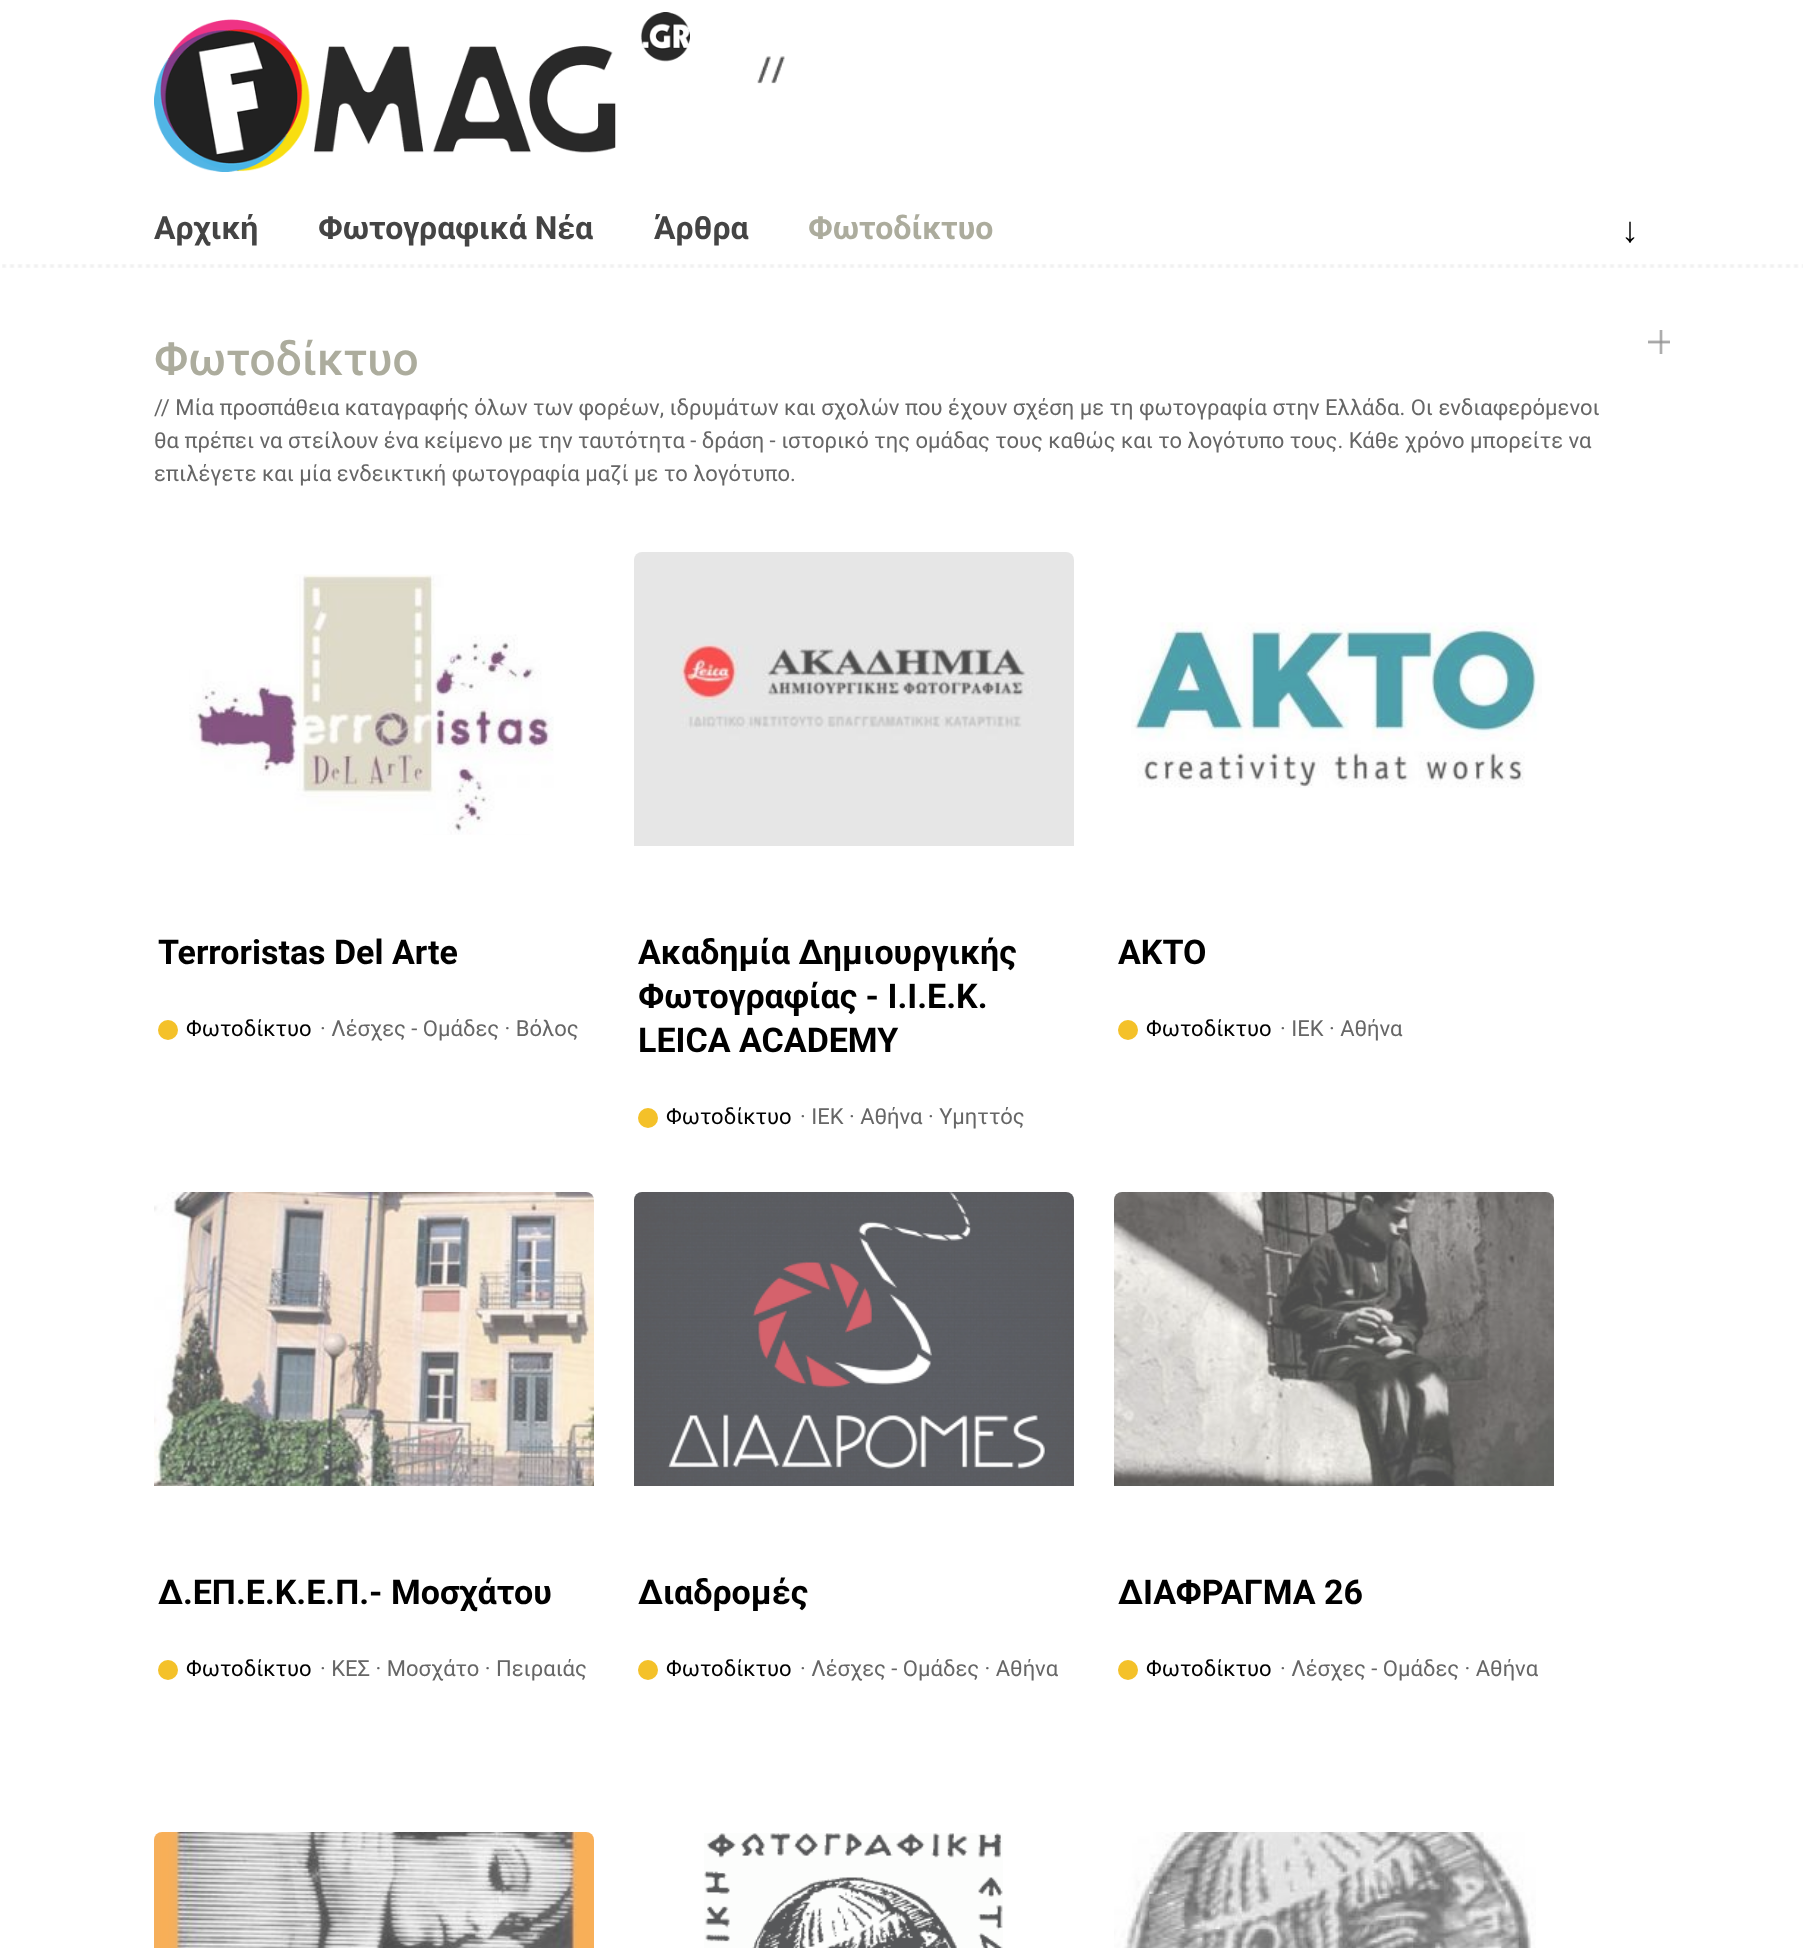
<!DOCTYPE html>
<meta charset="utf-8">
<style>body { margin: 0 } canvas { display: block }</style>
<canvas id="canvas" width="1803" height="1948"></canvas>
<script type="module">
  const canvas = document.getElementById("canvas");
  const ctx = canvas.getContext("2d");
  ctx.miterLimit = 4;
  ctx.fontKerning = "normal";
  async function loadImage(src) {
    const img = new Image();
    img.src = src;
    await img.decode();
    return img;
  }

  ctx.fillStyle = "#ffffff";
  ctx.fillRect(0, 0, 1803, 1948);
  ctx.drawImage(await loadImage("img1.png"), 154, 12, 536, 160);
  ctx.drawImage(await loadImage("img2.png"), 757, 56, 28, 28);
  ctx.font = "bold 32px Roboto";
  ctx.fillStyle = "#444444";
  ctx.fillText("Αρχική", 154, 239);
  ctx.fillText("Φωτογραφικά Νέα", 318, 239);
  ctx.fillText("Άρθρα", 654, 239);
  ctx.fillStyle = "#acac9d";
  ctx.fillText("Φωτοδίκτυο", 808, 239);
  ctx.font = "bold 36px Liberation Sans";
  ctx.fillStyle = "#000000";
  ctx.fillText("↓", 1621, 242);
  ctx.drawImage(await loadImage("img3.png"), 2, 264, 1801, 4);
  ctx.drawImage(await loadImage("img4.png"), 1648, 330, 22, 24);
  ctx.font = "500 46px Roboto";
  ctx.fillStyle = "#acac9d";
  ctx.fillText("Φωτοδίκτυο", 154, 375);
  ctx.font = "22px Roboto";
  ctx.fillStyle = "#666666";
  ctx.fillText("// Μία προσπάθεια καταγραφής όλων των φορέων, ιδρυμάτων και σχολών που έχουν σχέση με τη φωτογραφία στην Ελλάδα. Οι ενδιαφερόμενοι", 154, 415);
  ctx.fillText("θα πρέπει να στείλουν ένα κείμενο με την ταυτότητα - δράση - ιστορικό της ομάδας τους καθώς και το λογότυπο τους. Κάθε χρόνο μπορείτε να", 154, 448);
  ctx.fillText("επιλέγετε και μία ενδεικτική φωτογραφία μαζί με το λογότυπο.", 154, 481);
  ctx.drawImage(await loadImage("img5.png"), 189, 574, 365, 261);
  ctx.font = "bold 34px Roboto";
  ctx.fillStyle = "#000000";
  ctx.fillText("Terroristas Del Arte", 158, 964);
  ctx.fillStyle = "#f4c129";
  ctx.beginPath();
  ctx.arc(168, 1030, 10, 0, Math.PI * 2);
  ctx.fill();
  ctx.font = "22px Roboto";
  ctx.fillStyle = "#000000";
  ctx.fillText("Φωτοδίκτυο", 186, 1036);
  ctx.fillStyle = "#666666";
  ctx.fillText("· Λέσχες - Ομάδες · Βόλος", 320, 1036);
  ctx.drawImage(await loadImage("img6.png"), 634, 552, 440, 294);
  ctx.font = "bold 34px Roboto";
  ctx.fillStyle = "#000000";
  ctx.fillText("Ακαδημία Δημιουργικής", 638, 964);
  ctx.fillText("Φωτογραφίας - Ι.Ι.Ε.Κ.", 638, 1008);
  ctx.fillText("LEICA ACADEMY", 638, 1052);
  ctx.fillStyle = "#f4c129";
  ctx.beginPath();
  ctx.arc(648, 1118, 10, 0, Math.PI * 2);
  ctx.fill();
  ctx.font = "22px Roboto";
  ctx.fillStyle = "#000000";
  ctx.fillText("Φωτοδίκτυο", 666, 1124);
  ctx.fillStyle = "#666666";
  ctx.fillText("· ΙΕΚ · Αθήνα · Υμηττός", 800, 1124);
  ctx.drawImage(await loadImage("img7.png"), 1131, 622, 411, 166);
  ctx.font = "bold 34px Roboto";
  ctx.fillStyle = "#000000";
  ctx.fillText("ΑΚΤΟ", 1118, 964);
  ctx.fillStyle = "#f4c129";
  ctx.beginPath();
  ctx.arc(1128, 1030, 10, 0, Math.PI * 2);
  ctx.fill();
  ctx.font = "22px Roboto";
  ctx.fillStyle = "#000000";
  ctx.fillText("Φωτοδίκτυο", 1146, 1036);
  ctx.fillStyle = "#666666";
  ctx.fillText("· ΙΕΚ · Αθήνα", 1280, 1036);
  ctx.drawImage(await loadImage("img8.png"), 154, 1192, 440, 294);
  ctx.font = "bold 34px Roboto";
  ctx.fillStyle = "#000000";
  ctx.fillText("Δ.ΕΠ.Ε.Κ.Ε.Π.- Μοσχάτου", 158, 1604);
  ctx.fillStyle = "#f4c129";
  ctx.beginPath();
  ctx.arc(168, 1670, 10, 0, Math.PI * 2);
  ctx.fill();
  ctx.font = "22px Roboto";
  ctx.fillStyle = "#000000";
  ctx.fillText("Φωτοδίκτυο", 186, 1676);
  ctx.fillStyle = "#666666";
  ctx.fillText("· ΚΕΣ · Μοσχάτο · Πειραιάς", 320, 1676);
  ctx.drawImage(await loadImage("img9.png"), 634, 1192, 440, 294);
  ctx.font = "bold 34px Roboto";
  ctx.fillStyle = "#000000";
  ctx.fillText("Διαδρομές", 638, 1604);
  ctx.fillStyle = "#f4c129";
  ctx.beginPath();
  ctx.arc(648, 1670, 10, 0, Math.PI * 2);
  ctx.fill();
  ctx.font = "22px Roboto";
  ctx.fillStyle = "#000000";
  ctx.fillText("Φωτοδίκτυο", 666, 1676);
  ctx.fillStyle = "#666666";
  ctx.fillText("· Λέσχες - Ομάδες · Αθήνα", 800, 1676);
  ctx.drawImage(await loadImage("img10.png"), 1114, 1192, 440, 294);
  ctx.font = "bold 34px Roboto";
  ctx.fillStyle = "#000000";
  ctx.fillText("ΔΙΑΦΡΑΓΜΑ 26", 1118, 1604);
  ctx.fillStyle = "#f4c129";
  ctx.beginPath();
  ctx.arc(1128, 1670, 10, 0, Math.PI * 2);
  ctx.fill();
  ctx.font = "22px Roboto";
  ctx.fillStyle = "#000000";
  ctx.fillText("Φωτοδίκτυο", 1146, 1676);
  ctx.fillStyle = "#666666";
  ctx.fillText("· Λέσχες - Ομάδες · Αθήνα", 1280, 1676);
  ctx.drawImage(await loadImage("img11.png"), 154, 1832, 440, 116);
  ctx.drawImage(await loadImage("img12.png"), 704, 1833, 299, 115);
  ctx.drawImage(await loadImage("img13.png"), 1114, 1832, 422, 116);
</script>
